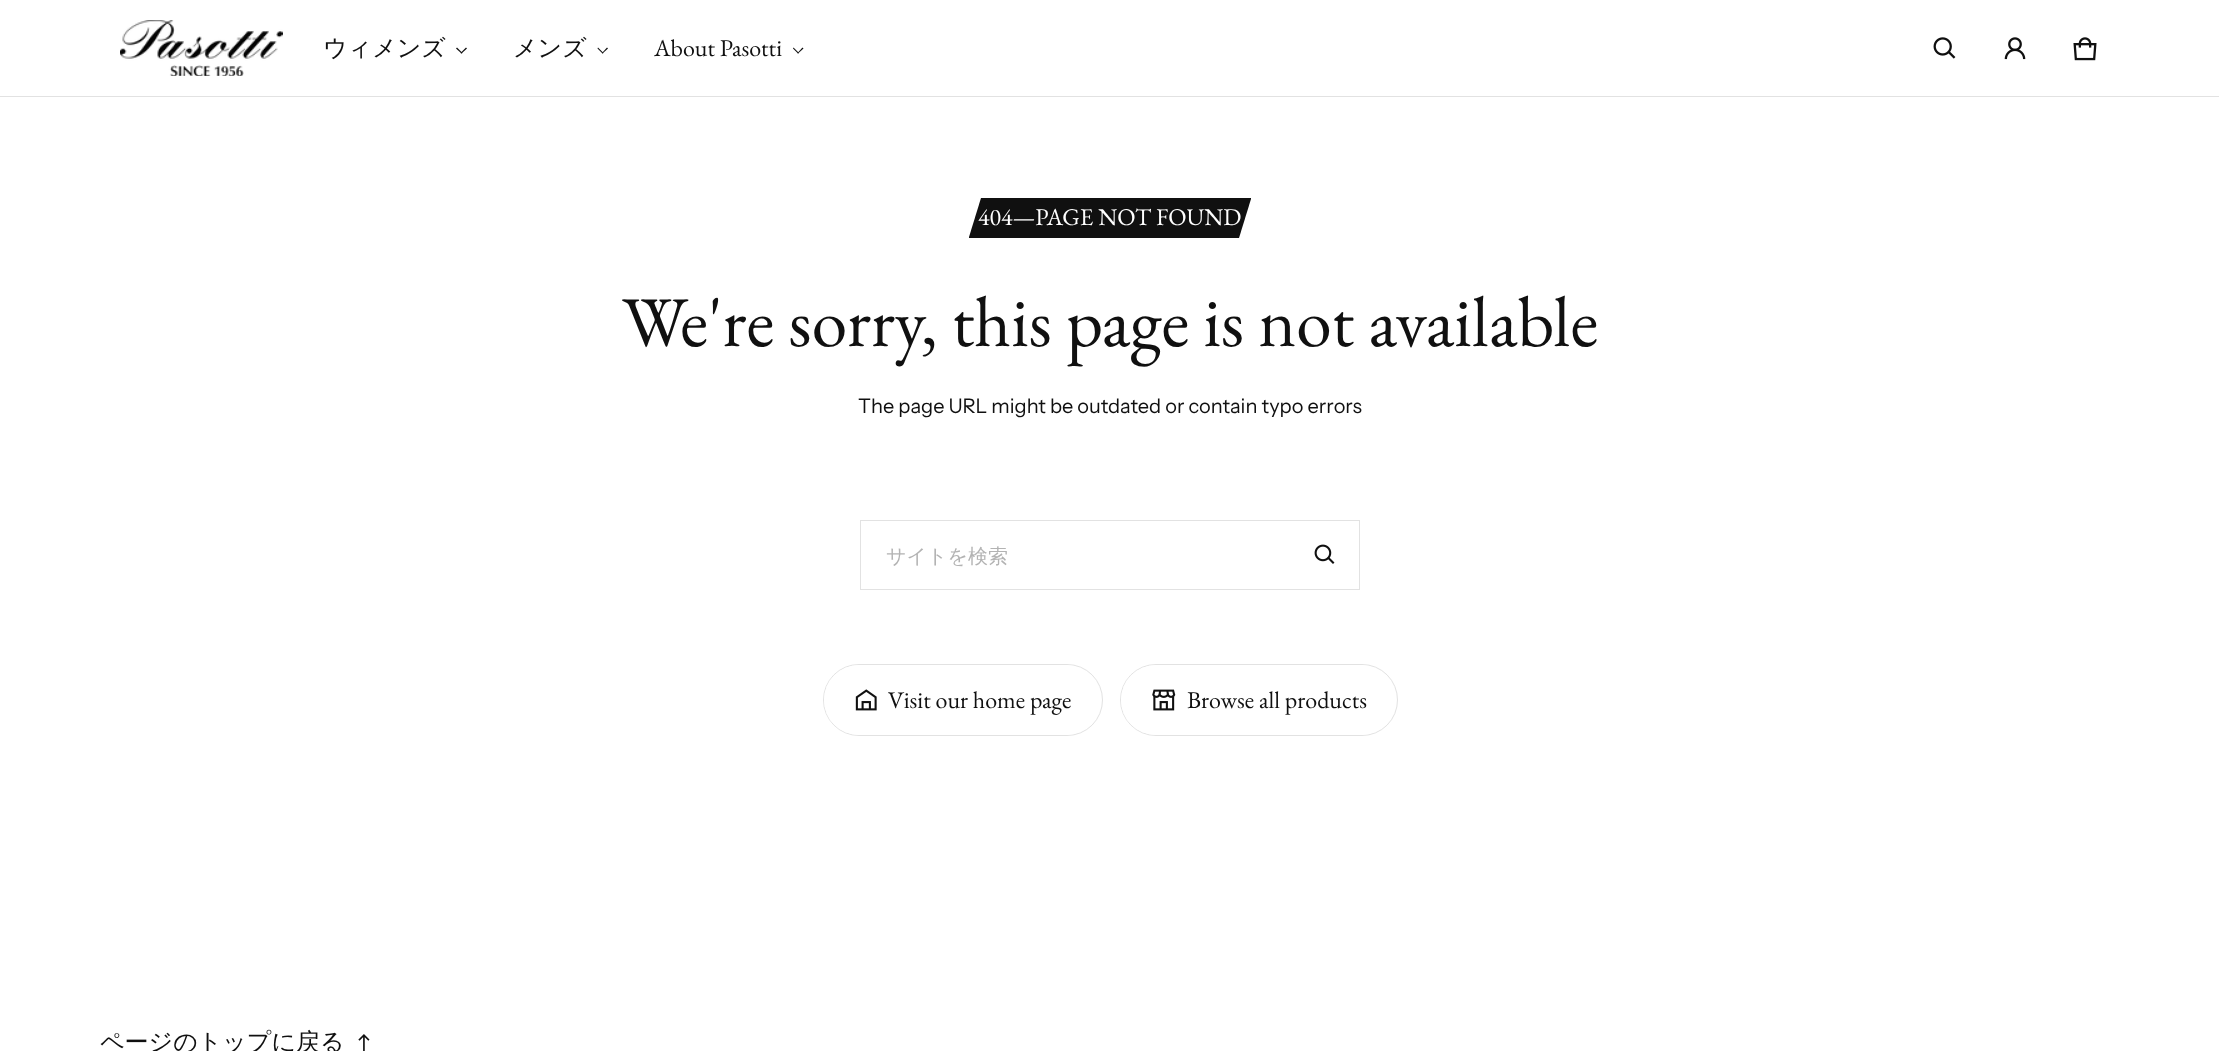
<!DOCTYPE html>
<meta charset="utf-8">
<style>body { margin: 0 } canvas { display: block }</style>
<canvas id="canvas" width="2219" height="1051"></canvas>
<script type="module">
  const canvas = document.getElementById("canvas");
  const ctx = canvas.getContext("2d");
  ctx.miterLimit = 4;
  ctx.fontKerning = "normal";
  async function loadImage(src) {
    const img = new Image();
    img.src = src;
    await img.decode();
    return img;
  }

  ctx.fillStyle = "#ffffff";
  ctx.fillRect(0, 0, 2219, 1051);
  ctx.fillStyle = "#e2e2e2";
  ctx.fillRect(0, 96, 2219, 1);
  ctx.drawImage(await loadImage("img1.png"), 120, 20, 163, 56);
  ctx.font = "500 24px WenQuanYi Zen Hei";
  ctx.fillStyle = "#101010";
  ctx.fillText("ウィメンズ", 323, 56);
  ctx.beginPath();
  ctx.moveTo(457, 47.5);
  ctx.lineTo(462.5, 53);
  ctx.lineTo(461.5, 53.5);
  ctx.lineTo(456, 48.5);
  ctx.closePath();
  ctx.fill();
  ctx.beginPath();
  ctx.moveTo(460.5, 53);
  ctx.lineTo(466, 47.5);
  ctx.lineTo(467, 48.5);
  ctx.lineTo(461.5, 53.5);
  ctx.closePath();
  ctx.fill();
  ctx.fillText("メンズ", 513, 56);
  ctx.beginPath();
  ctx.moveTo(598, 47.5);
  ctx.lineTo(603.5, 53);
  ctx.lineTo(602.5, 53.5);
  ctx.lineTo(597.5, 48.5);
  ctx.closePath();
  ctx.fill();
  ctx.beginPath();
  ctx.moveTo(602, 53);
  ctx.lineTo(607, 47.5);
  ctx.lineTo(608, 48.5);
  ctx.lineTo(602.5, 53.5);
  ctx.closePath();
  ctx.fill();
  ctx.font = "24px EB Garamond";
  ctx.fillText("About Pasotti", 654, 56);
  ctx.beginPath();
  ctx.moveTo(793.5, 47.5);
  ctx.lineTo(799, 53);
  ctx.lineTo(798, 53.5);
  ctx.lineTo(793, 48.5);
  ctx.closePath();
  ctx.fill();
  ctx.beginPath();
  ctx.moveTo(797.5, 53);
  ctx.lineTo(802.5, 47.5);
  ctx.lineTo(803.5, 48.5);
  ctx.lineTo(798, 53.5);
  ctx.closePath();
  ctx.fill();
  ctx.drawImage(await loadImage("img2.png"), 1933, 37, 23, 22);
  ctx.drawImage(await loadImage("img3.png"), 2004, 37, 22, 23);
  ctx.drawImage(await loadImage("img4.png"), 2073, 37, 24, 24);
  ctx.beginPath();
  ctx.moveTo(969, 237);
  ctx.lineTo(981, 198);
  ctx.lineTo(1251, 198);
  ctx.lineTo(1251, 199);
  ctx.lineTo(1239, 238);
  ctx.lineTo(969, 238);
  ctx.closePath();
  ctx.fill();
  ctx.fillStyle = "#ffffff";
  ctx.fillText("404—PAGE NOT FOUND", 978, 225);
  ctx.font = "71.5px EB Garamond";
  ctx.fillStyle = "#101010";
  ctx.fillText("We're sorry, this page is not available", 622, 346);
  ctx.font = "20px Instrument Sans";
  ctx.fillText("The page URL might be outdated or contain typo errors", 858, 413);
  ctx.strokeStyle = "#e2e2e2";
  ctx.strokeRect(860.5, 520.5, 499, 69);
  ctx.font = "500 20px WenQuanYi Zen Hei";
  ctx.fillStyle = "#b3b3b3";
  ctx.fillText("サイトを検索", 886, 563);
  ctx.drawImage(await loadImage("img5.png"), 1314, 544, 21, 20);
  ctx.beginPath();
  ctx.roundRect(823.5, 664.5, 279, 71, 35.5);
  ctx.stroke();
  ctx.fillStyle = "#ffffff";
  ctx.beginPath();
  ctx.roundRect(824, 665, 277, 70, 35);
  ctx.fill();
  ctx.drawImage(await loadImage("img6.png"), 855, 689, 22, 22);
  ctx.font = "24px EB Garamond";
  ctx.fillStyle = "#101010";
  ctx.fillText("Visit our home page", 888, 708);
  ctx.beginPath();
  ctx.roundRect(1120.5, 664.5, 277, 71, 35.5);
  ctx.stroke();
  ctx.fillStyle = "#ffffff";
  ctx.beginPath();
  ctx.roundRect(1121, 665, 275, 70, 35);
  ctx.fill();
  ctx.drawImage(await loadImage("img7.png"), 1152, 689, 24, 22);
  ctx.fillStyle = "#101010";
  ctx.fillText("Browse all products", 1187, 708);
  ctx.font = "500 24px WenQuanYi Zen Hei";
  ctx.fillText("ページのトップに戻る", 100, 1050);
  ctx.drawImage(await loadImage("img8.png"), 358, 1034, 12, 17);
</script>
